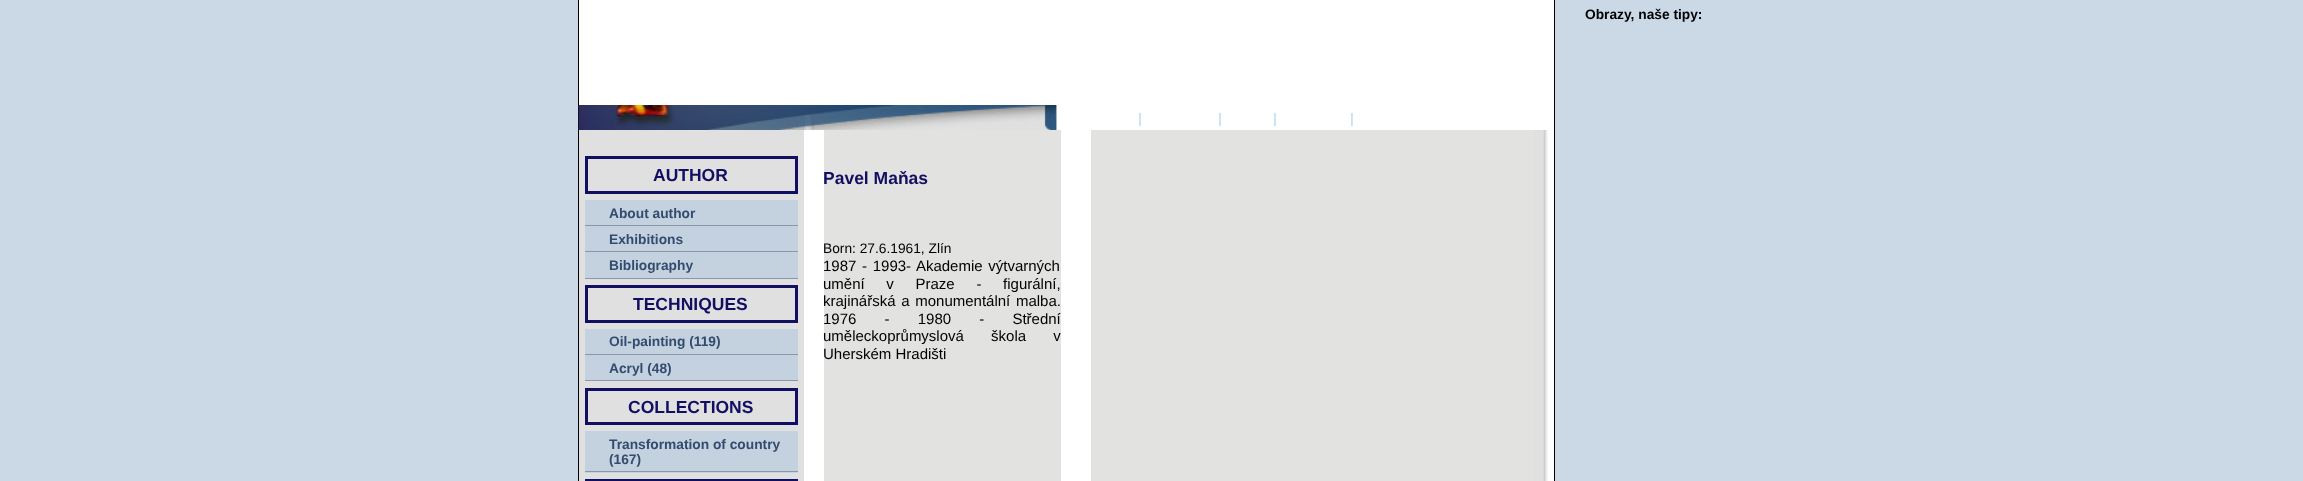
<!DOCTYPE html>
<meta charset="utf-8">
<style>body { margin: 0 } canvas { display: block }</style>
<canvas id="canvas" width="2303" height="481"></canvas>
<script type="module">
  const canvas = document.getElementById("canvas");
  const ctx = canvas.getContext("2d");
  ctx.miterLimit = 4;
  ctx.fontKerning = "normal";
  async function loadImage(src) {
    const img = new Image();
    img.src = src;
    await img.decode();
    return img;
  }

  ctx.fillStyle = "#cbd9e7";
  ctx.fillRect(0, 0, 2303, 481);
  ctx.font = "bold 13.75px Liberation Sans";
  ctx.fillStyle = "#000000";
  ctx.fillText("Obrazy, naše tipy:", 1585, 19);
  ctx.fillStyle = "#ffffff";
  ctx.fillRect(579, 0, 975, 481);
  ctx.fillStyle = "#000000";
  ctx.fillRect(1554, 0, 1, 481);
  ctx.fillRect(578, 0, 1, 481);
  ctx.drawImage(await loadImage("img1.png"), 578, 105, 479, 25);
  ctx.drawImage(await loadImage("img2.png"), 578, 105, 479, 25);
  ctx.fillStyle = "#c6e0f7";
  ctx.fillText("|", 1138, 123);
  ctx.fillText("|", 1218, 123);
  ctx.fillText("|", 1273, 123);
  ctx.fillText("|", 1350, 123);
  ctx.fillStyle = "#e0e0e0";
  ctx.fillRect(579, 130, 225, 351);
  ctx.strokeStyle = "#120e62";
  ctx.lineWidth = 3;
  ctx.strokeRect(586.5, 157.5, 210, 35);
  ctx.font = "bold 17.5px Liberation Sans";
  ctx.fillStyle = "#120e62";
  ctx.fillText("AUTHOR", 653, 181);
  ctx.fillStyle = "#c4d2df";
  ctx.fillRect(585, 200, 213, 25);
  ctx.fillStyle = "#8996ae";
  ctx.fillRect(585, 225, 213, 1);
  ctx.font = "bold 13.75px Liberation Sans";
  ctx.fillStyle = "#324b6e";
  ctx.fillText("About author", 609, 218);
  ctx.fillStyle = "#c4d2df";
  ctx.fillRect(585, 226, 213, 52);
  ctx.fillStyle = "#8996ae";
  ctx.fillRect(585, 251, 213, 1);
  ctx.fillStyle = "#324b6e";
  ctx.fillText("Exhibitions", 609, 244);
  ctx.fillStyle = "#8996ae";
  ctx.fillRect(585, 278, 213, 1);
  ctx.fillStyle = "#324b6e";
  ctx.fillText("Bibliography", 609, 270);
  ctx.strokeRect(586.5, 286.5, 210, 35);
  ctx.font = "bold 17.5px Liberation Sans";
  ctx.fillStyle = "#120e62";
  ctx.fillText("TECHNIQUES", 633, 310);
  ctx.fillStyle = "#c4d2df";
  ctx.fillRect(585, 329, 213, 25);
  ctx.fillStyle = "#8996ae";
  ctx.fillRect(585, 354, 213, 1);
  ctx.font = "bold 13.75px Liberation Sans";
  ctx.fillStyle = "#324b6e";
  ctx.fillText("Oil-painting (119)", 609, 346);
  ctx.fillStyle = "#c4d2df";
  ctx.fillRect(585, 355, 213, 25);
  ctx.fillStyle = "#8996ae";
  ctx.fillRect(585, 380, 213, 1);
  ctx.fillStyle = "#324b6e";
  ctx.fillText("Acryl (48)", 609, 373);
  ctx.strokeRect(586.5, 389.5, 210, 34);
  ctx.font = "bold 17.5px Liberation Sans";
  ctx.fillStyle = "#120e62";
  ctx.fillText("COLLECTIONS", 628, 413);
  ctx.fillStyle = "#c4d2df";
  ctx.fillRect(585, 431, 213, 42);
  ctx.fillStyle = "#8996ae";
  ctx.fillRect(585, 471, 213, 1);
  ctx.font = "bold 13.75px Liberation Sans";
  ctx.fillStyle = "#324b6e";
  ctx.fillText("Transformation of country", 609, 449);
  ctx.fillText("(167)", 609, 464);
  ctx.strokeRect(586.5, 480.5, 210, 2);
  ctx.fillStyle = "#e2e2e1";
  ctx.fillRect(824, 130, 237, 351);
  ctx.font = "bold 17.5px Liberation Sans";
  ctx.fillStyle = "#120e62";
  ctx.fillText("Pavel Maňas", 823, 184);
  ctx.font = "13.75px Liberation Sans";
  ctx.fillStyle = "#000000";
  ctx.fillText("Born: 27.6.1961, Zlín", 823, 253);
  ctx.wordSpacing = "1.5px";
  ctx.font = "15px Liberation Sans";
  ctx.fillText("1987 - 1993- Akademie výtvarných", 823, 271);
  ctx.wordSpacing = "17.5px";
  ctx.fillText("umění v Praze - figurální,", 823, 289);
  ctx.wordSpacing = "1.5px";
  ctx.fillText("krajinářská a monumentální malba.", 823, 306);
  ctx.wordSpacing = "24px";
  ctx.fillText("1976 - 1980 - Střední", 823, 324);
  ctx.wordSpacing = "23px";
  ctx.fillText("uměleckoprůmyslová škola v", 823, 341);
  ctx.wordSpacing = "0px";
  ctx.fillText("Uherském Hradišti", 823, 359);
  ctx.fillStyle = "#e2e2e1";
  ctx.fillRect(1091, 130, 443, 351);
  ctx.drawImage(await loadImage("img3.png"), 1534, 130, 14, 351);
</script>
